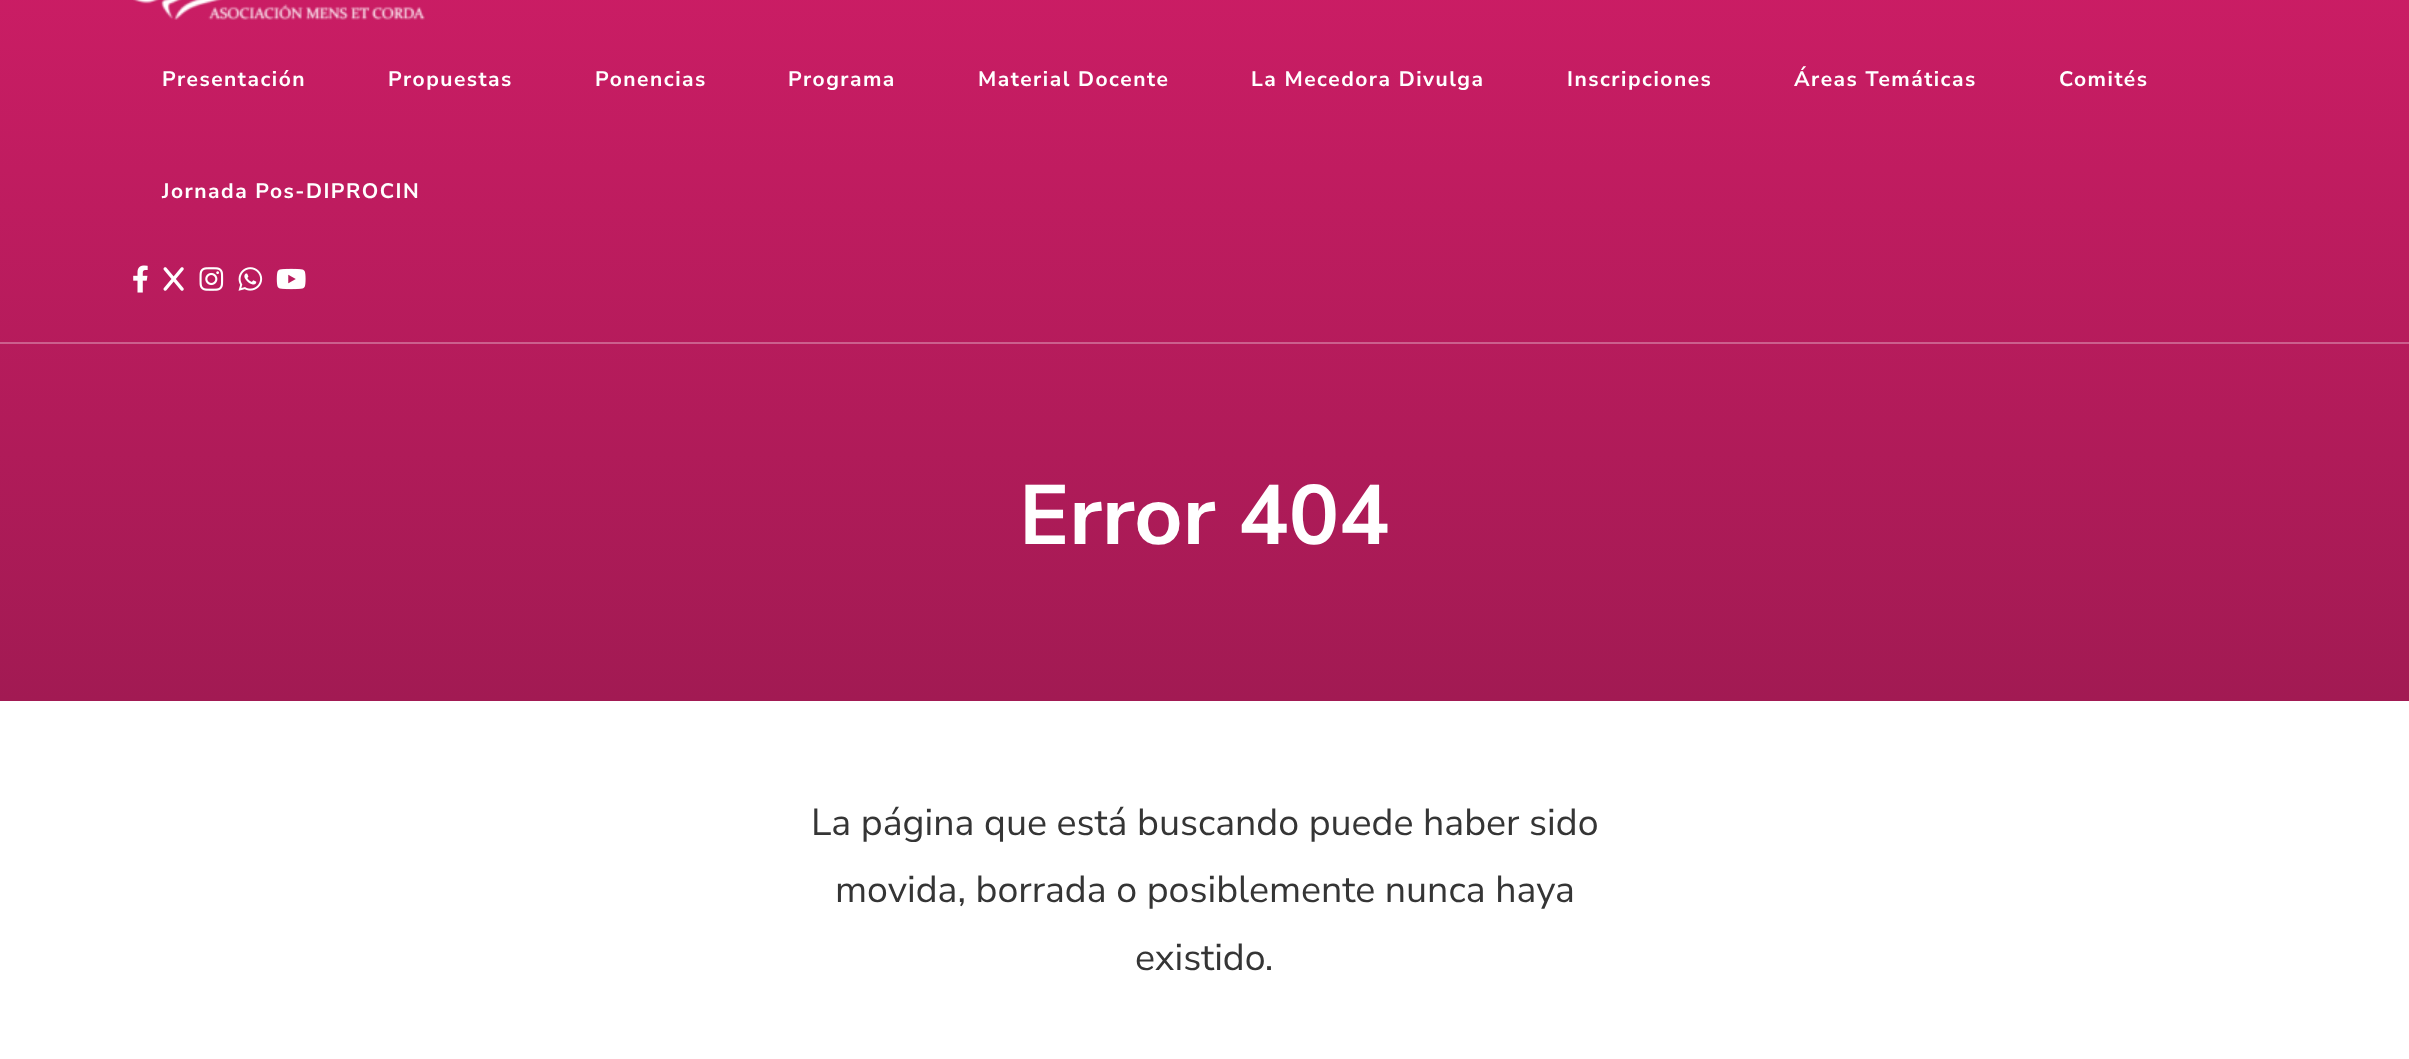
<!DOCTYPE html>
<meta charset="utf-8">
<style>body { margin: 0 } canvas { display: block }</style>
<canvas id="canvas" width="2409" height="1059"></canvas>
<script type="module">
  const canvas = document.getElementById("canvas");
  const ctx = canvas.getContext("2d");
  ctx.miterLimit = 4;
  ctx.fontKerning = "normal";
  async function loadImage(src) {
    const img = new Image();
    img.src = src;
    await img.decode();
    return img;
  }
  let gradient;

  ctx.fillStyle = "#ffffff";
  ctx.fillRect(0, 0, 2409, 1059);
  gradient = ctx.createLinearGradient(1205, -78, 1205, 701);
  gradient.addColorStop(0, "#ce1d66");
  gradient.addColorStop(1, "#a21a53");
  ctx.fillStyle = gradient;
  ctx.fillRect(0, 0, 2409, 701);
  ctx.fillStyle = "#cc5f8d";
  ctx.fillRect(0, 342, 2409, 2);
  ctx.drawImage(await loadImage("img1.png"), 133, 0, 292, 20);
  ctx.letterSpacing = "1.5px";
  ctx.font = "bold 21px Nunito Sans";
  ctx.fillStyle = "#ffffff";
  ctx.fillText("Presentación", 162, 86);
  ctx.fillText("Propuestas", 388, 86);
  ctx.fillText("Ponencias", 595, 86);
  ctx.fillText("Programa", 788, 86);
  ctx.fillText("Material Docente", 978, 86);
  ctx.fillText("La Mecedora Divulga", 1251, 86);
  ctx.fillText("Inscripciones", 1567, 86);
  ctx.fillText("Áreas Temáticas", 1794, 86);
  ctx.fillText("Comités", 2059, 86);
  ctx.fillText("Jornada Pos-DIPROCIN", 162, 198);
  ctx.drawImage(await loadImage("img2.png"), 133, 265, 15, 28);
  ctx.drawImage(await loadImage("img3.png"), 163, 267, 21, 24);
  ctx.drawImage(await loadImage("img4.png"), 199, 267, 25, 24);
  ctx.drawImage(await loadImage("img5.png"), 238, 267, 25, 24);
  ctx.drawImage(await loadImage("img6.png"), 276, 268, 30, 22);
  ctx.letterSpacing = "0px";
  ctx.font = "bold 84px Nunito Sans";
  ctx.fillText("Error 404", 1019, 544);
  ctx.font = "37.5px Nunito Sans";
  ctx.fillStyle = "#353535";
  ctx.fillText("La página que está buscando puede haber sido", 811, 835);
  ctx.fillText("movida, borrada o posiblemente nunca haya", 835, 902);
  ctx.fillText("existido.", 1135, 970);
</script>
